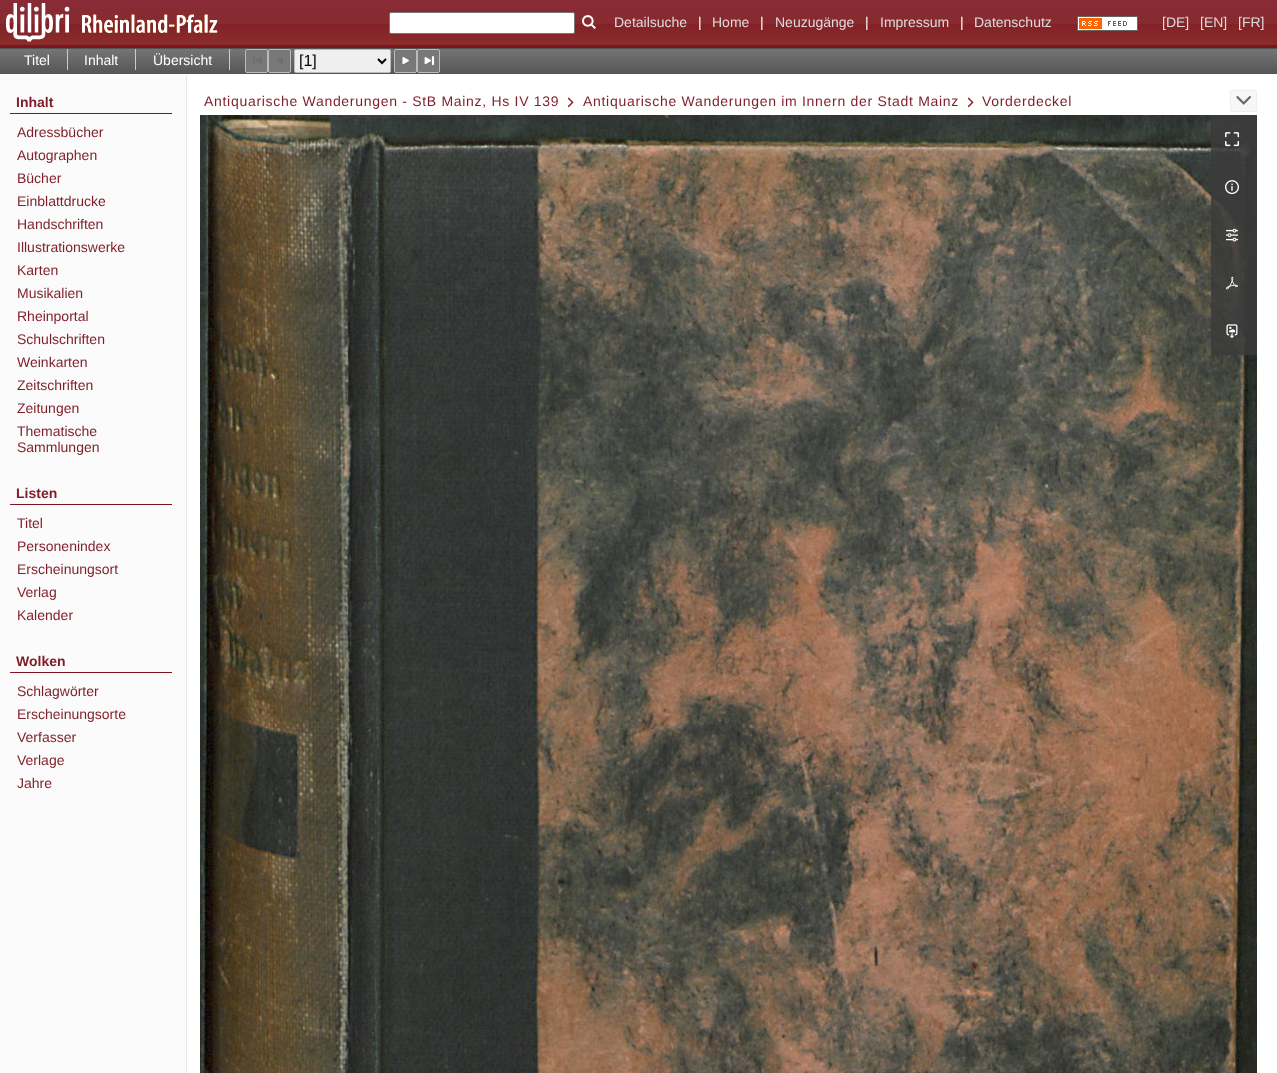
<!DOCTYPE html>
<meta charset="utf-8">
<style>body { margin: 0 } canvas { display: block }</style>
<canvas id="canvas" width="1277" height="1073"></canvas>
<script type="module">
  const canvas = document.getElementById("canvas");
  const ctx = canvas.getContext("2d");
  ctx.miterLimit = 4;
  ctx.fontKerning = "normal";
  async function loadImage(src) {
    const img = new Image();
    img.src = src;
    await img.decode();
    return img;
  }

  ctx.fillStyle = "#ffffff";
  ctx.fillRect(0, 0, 1277, 1073);
  ctx.fillStyle = "#7d141e";
  ctx.fillRect(0, 45, 1277, 3);
  ctx.drawImage(await loadImage("img1.png"), 0, 0, 1277, 45);
  ctx.drawImage(await loadImage("img2.png"), 6, 3, 212, 39);
  ctx.fillStyle = "#ffffff";
  ctx.beginPath();
  ctx.roundRect(389.5, 12.5, 185, 21, 1.5);
  ctx.fill();
  ctx.strokeStyle = "#767676";
  ctx.stroke();
  ctx.drawImage(await loadImage("img3.png"), 582, 15, 14, 14);
  ctx.font = "14px Liberation Sans";
  ctx.fillStyle = "#dddddd";
  ctx.fillText("Detailsuche", 614, 27);
  ctx.fillStyle = "#ffffff";
  ctx.fillText("|", 698, 27);
  ctx.fillStyle = "#dddddd";
  ctx.fillText("Home", 712, 27);
  ctx.fillStyle = "#ffffff";
  ctx.fillText("|", 760, 27);
  ctx.fillStyle = "#dddddd";
  ctx.fillText("Neuzugänge", 775, 27);
  ctx.fillStyle = "#ffffff";
  ctx.fillText("|", 865, 27);
  ctx.fillStyle = "#dddddd";
  ctx.fillText("Impressum", 880, 27);
  ctx.fillStyle = "#ffffff";
  ctx.fillText("|", 960, 27);
  ctx.fillStyle = "#dddddd";
  ctx.fillText("Datenschutz", 974, 27);
  ctx.drawImage(await loadImage("img4.png"), 1077, 16, 61, 15);
  ctx.fillText("[DE]", 1162, 27);
  ctx.fillText("[EN]", 1200, 27);
  ctx.fillText("[FR]", 1238, 27);
  ctx.drawImage(await loadImage("img5.png"), 0, 49, 1277, 25);
  ctx.fillStyle = "#555555";
  ctx.fillRect(0, 48, 1277, 1);
  ctx.fillStyle = "#cccccc";
  ctx.fillRect(67, 49, 1, 21);
  ctx.fillStyle = "#ffffff";
  ctx.fillText("Titel", 24, 65);
  ctx.fillStyle = "#cccccc";
  ctx.fillRect(135, 49, 1, 21);
  ctx.fillStyle = "#ffffff";
  ctx.fillText("Inhalt", 84, 65);
  ctx.fillStyle = "#cccccc";
  ctx.fillRect(229, 49, 1, 21);
  ctx.fillStyle = "#ffffff";
  ctx.fillText("Übersicht", 153, 65);
  ctx.fillStyle = "#787878";
  ctx.beginPath();
  ctx.roundRect(245.5, 49.5, 22, 23, 1.5);
  ctx.fill();
  ctx.strokeStyle = "#bbbbbb";
  ctx.stroke();
  ctx.drawImage(await loadImage("img6.png"), 253, 56, 9, 9);
  ctx.beginPath();
  ctx.roundRect(268.5, 49.5, 22, 23, 1.5);
  ctx.fill();
  ctx.stroke();
  ctx.drawImage(await loadImage("img7.png"), 277, 57, 6, 7);
  ctx.fillStyle = "#efefef";
  ctx.beginPath();
  ctx.roundRect(294.5, 49.5, 96, 23, 1.5);
  ctx.fill();
  ctx.stroke();
  ctx.beginPath();
  ctx.moveTo(378, 59);
  ctx.lineTo(382, 63);
  ctx.lineTo(386, 59);
  ctx.strokeStyle = "#000000";
  ctx.lineWidth = 2;
  ctx.stroke();
  ctx.font = "16px Liberation Sans";
  ctx.fillStyle = "#000000";
  ctx.fillText("[1]", 299, 66);
  ctx.fillStyle = "#787878";
  ctx.beginPath();
  ctx.roundRect(394.5, 49.5, 22, 23, 1.5);
  ctx.fill();
  ctx.strokeStyle = "#bbbbbb";
  ctx.lineWidth = 1;
  ctx.stroke();
  ctx.drawImage(await loadImage("img8.png"), 402, 57, 7, 8);
  ctx.beginPath();
  ctx.roundRect(417.5, 49.5, 22, 23, 1.5);
  ctx.fill();
  ctx.stroke();
  ctx.drawImage(await loadImage("img9.png"), 424, 56, 11, 10);
  ctx.fillStyle = "#fbfbfb";
  ctx.fillRect(0, 75, 186, 998);
  ctx.fillStyle = "#e7e7e7";
  ctx.fillRect(186, 75, 1, 998);
  ctx.fillStyle = "#7d141e";
  ctx.fillRect(10, 113, 162, 1);
  ctx.font = "bold 14px Liberation Sans";
  ctx.fillStyle = "#7e1e29";
  ctx.fillText("Inhalt", 16, 107);
  ctx.font = "14px Liberation Sans";
  ctx.fillText("Adressbücher", 17, 137);
  ctx.fillText("Autographen", 17, 160);
  ctx.fillText("Bücher", 17, 183);
  ctx.fillText("Einblattdrucke", 17, 206);
  ctx.fillText("Handschriften", 17, 229);
  ctx.fillText("Illustrationswerke", 17, 252);
  ctx.fillText("Karten", 17, 275);
  ctx.fillText("Musikalien", 17, 298);
  ctx.fillText("Rheinportal", 17, 321);
  ctx.fillText("Schulschriften", 17, 344);
  ctx.fillText("Weinkarten", 17, 367);
  ctx.fillText("Zeitschriften", 17, 390);
  ctx.fillText("Zeitungen", 17, 413);
  ctx.fillText("Thematische", 17, 436);
  ctx.fillText("Sammlungen", 17, 452);
  ctx.fillStyle = "#7d141e";
  ctx.fillRect(10, 504, 162, 1);
  ctx.font = "bold 14px Liberation Sans";
  ctx.fillStyle = "#7e1e29";
  ctx.fillText("Listen", 16, 498);
  ctx.font = "14px Liberation Sans";
  ctx.fillText("Titel", 17, 528);
  ctx.fillText("Personenindex", 17, 551);
  ctx.fillText("Erscheinungsort", 17, 574);
  ctx.fillText("Verlag", 17, 597);
  ctx.fillText("Kalender", 17, 620);
  ctx.fillStyle = "#7d141e";
  ctx.fillRect(10, 672, 162, 1);
  ctx.font = "bold 14px Liberation Sans";
  ctx.fillStyle = "#7e1e29";
  ctx.fillText("Wolken", 16, 666);
  ctx.font = "14px Liberation Sans";
  ctx.fillText("Schlagwörter", 17, 696);
  ctx.fillText("Erscheinungsorte", 17, 719);
  ctx.fillText("Verfasser", 17, 742);
  ctx.fillText("Verlage", 17, 765);
  ctx.fillText("Jahre", 17, 788);
  ctx.letterSpacing = "0.7px";
  ctx.fillText("Antiquarische Wanderungen - StB Mainz, Hs IV 139", 204, 106);
  ctx.drawImage(await loadImage("img10.png"), 567, 97, 7, 11);
  ctx.fillText("Antiquarische Wanderungen im Innern der Stadt Mainz", 583, 106);
  ctx.drawImage(await loadImage("img10.png"), 967, 97, 7, 11);
  ctx.fillText("Vorderdeckel", 982, 106);
  ctx.fillStyle = "#f7f7f8";
  ctx.beginPath();
  ctx.roundRect(1230.5, 90.5, 26, 21, 1.5);
  ctx.fill();
  ctx.strokeStyle = "#eeeeee";
  ctx.stroke();
  ctx.drawImage(await loadImage("img11.png"), 1236, 96, 15, 9);
  ctx.drawImage(await loadImage("img12.png"), 200, 115, 1057, 958);
  ctx.fillStyle = "rgba(59, 59, 59, 0.85)";
  ctx.fillRect(1211, 115, 46, 240);
  ctx.drawImage(await loadImage("img13.png"), 1225, 132, 15, 15);
  ctx.drawImage(await loadImage("img14.png"), 1225, 180, 14, 15);
  ctx.drawImage(await loadImage("img15.png"), 1225, 228, 14, 14);
  ctx.drawImage(await loadImage("img16.png"), 1226, 276, 12, 14);
  ctx.drawImage(await loadImage("img17.png"), 1226, 324, 12, 14);
</script>
